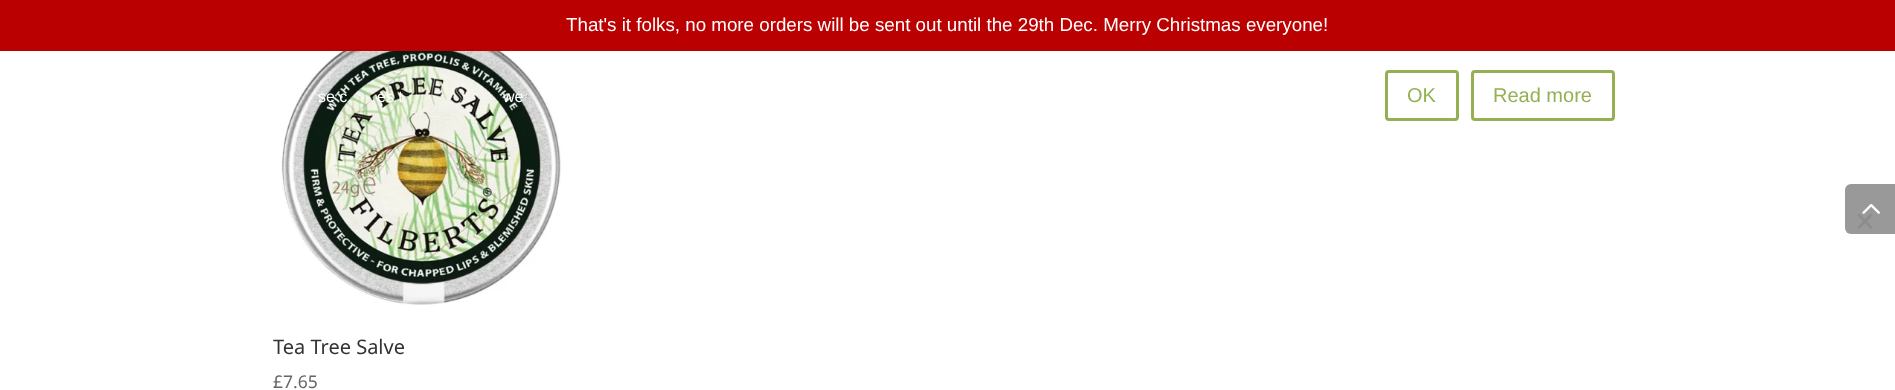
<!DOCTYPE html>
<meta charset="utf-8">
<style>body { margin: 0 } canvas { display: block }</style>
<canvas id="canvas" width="1895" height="390"></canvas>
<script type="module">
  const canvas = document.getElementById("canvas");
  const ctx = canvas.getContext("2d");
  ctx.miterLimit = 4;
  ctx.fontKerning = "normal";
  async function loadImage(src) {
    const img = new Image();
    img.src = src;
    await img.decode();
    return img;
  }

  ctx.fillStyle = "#ffffff";
  ctx.fillRect(0, 0, 1895, 390);
  ctx.fillStyle = "#ba0000";
  ctx.fillRect(0, 0, 1895, 51);
  ctx.font = "18.75px Liberation Sans";
  ctx.fillStyle = "#ffffff";
  ctx.fillText("That's it folks, no more orders will be sent out until the 29th Dec. Merry Christmas everyone!", 566, 31);
  ctx.drawImage(await loadImage("img2.png"), 281, 51, 280, 254);
  ctx.font = "16px Liberation Sans";
  ctx.fillText("se c", 318, 102);
  ctx.fillText("es t", 377, 102);
  ctx.fillText("we", 503, 102);
  ctx.beginPath();
  ctx.roundRect(1386.5, 71.5, 71, 48, 2.5);
  ctx.strokeStyle = "#95b052";
  ctx.lineWidth = 3;
  ctx.stroke();
  ctx.font = "20px Liberation Sans";
  ctx.fillStyle = "#95b052";
  ctx.fillText("OK", 1407, 102);
  ctx.beginPath();
  ctx.roundRect(1472.5, 71.5, 141, 48, 2.5);
  ctx.stroke();
  ctx.fillText("Read more", 1493, 102);
  ctx.fillStyle = "#999999";
  ctx.beginPath();
  ctx.roundRect(1845, 184, 50, 50, [6, 0, 0, 6]);
  ctx.fill();
  ctx.drawImage(await loadImage("img1.png"), 1862, 204, 18, 10);
  ctx.fillStyle = "#8d8d8d";
  ctx.beginPath();
  ctx.moveTo(1870.5, 213.5);
  ctx.lineTo(1872.5, 215.5);
  ctx.lineTo(1859.5, 229);
  ctx.lineTo(1857.5, 227);
  ctx.closePath();
  ctx.fill();
  ctx.beginPath();
  ctx.moveTo(1857.5, 215.5);
  ctx.lineTo(1859.5, 213.5);
  ctx.lineTo(1872.5, 227);
  ctx.lineTo(1870.5, 229);
  ctx.closePath();
  ctx.fill();
  ctx.font = "20px Noto Sans";
  ctx.fillStyle = "#333333";
  ctx.fillText("Tea Tree Salve", 273, 354);
  ctx.font = "17.5px Noto Sans";
  ctx.fillStyle = "#666666";
  ctx.fillText("£7.65", 273, 388);
</script>
